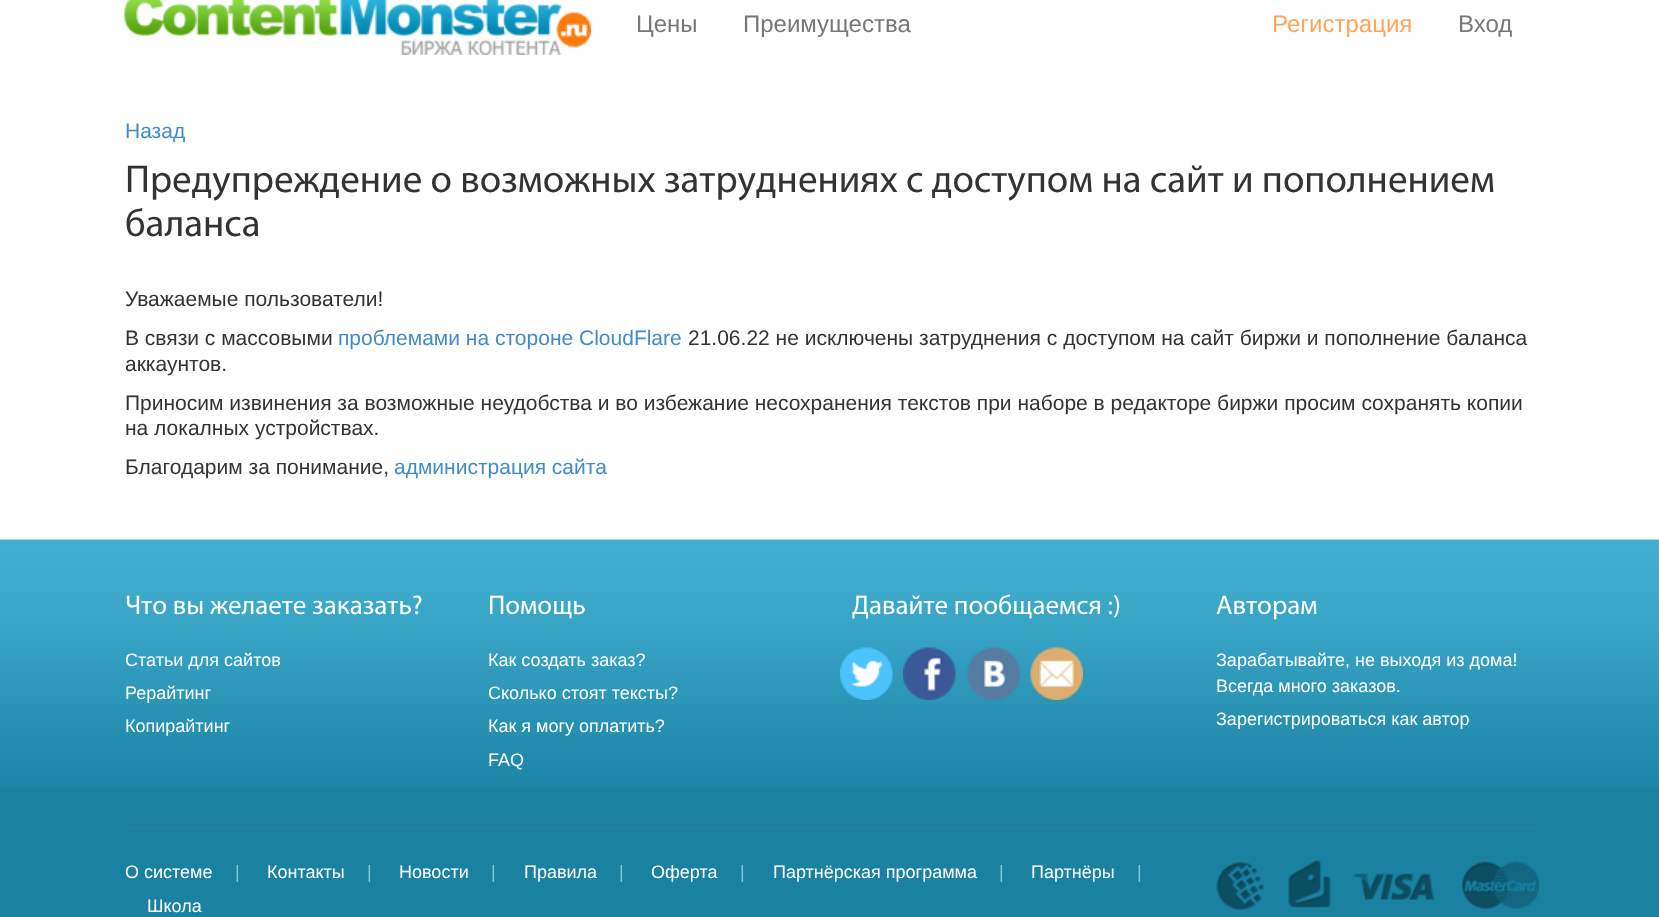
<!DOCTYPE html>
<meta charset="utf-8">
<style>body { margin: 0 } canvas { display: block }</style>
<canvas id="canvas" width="1659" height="917"></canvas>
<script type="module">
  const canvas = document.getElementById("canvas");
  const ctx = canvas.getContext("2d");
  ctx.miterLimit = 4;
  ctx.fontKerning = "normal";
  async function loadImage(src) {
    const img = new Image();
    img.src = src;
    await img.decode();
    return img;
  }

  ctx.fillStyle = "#ffffff";
  ctx.fillRect(0, 0, 1659, 917);
  ctx.drawImage(await loadImage("img1.png"), 124, 0, 467, 55);
  ctx.font = "24px Liberation Sans";
  ctx.fillStyle = "#777777";
  ctx.fillText("Цены", 636, 32);
  ctx.fillText("Преимущества", 743, 32);
  ctx.fillStyle = "#ffa458";
  ctx.fillText("Регистрация", 1272, 32);
  ctx.fillStyle = "#777777";
  ctx.fillText("Вход", 1458, 32);
  ctx.font = "21px Liberation Sans";
  ctx.fillStyle = "#428bca";
  ctx.fillText("Назад", 125, 138);
  ctx.font = "39px Myriad";
  ctx.fillStyle = "#333333";
  ctx.fillText("Предупреждение о возможных затруднениях с доступом на сайт и пополнением", 125, 192);
  ctx.fillText("баланса", 125, 236);
  ctx.font = "21px Liberation Sans";
  ctx.fillText("Уважаемые пользователи!", 125, 306);
  ctx.fillText("В связи с массовыми", 125, 345);
  ctx.fillStyle = "#428bca";
  ctx.fillText("проблемами на стороне CloudFlare", 338, 345);
  ctx.fillStyle = "#333333";
  ctx.fillText("21.06.22 не исключены затруднения с доступом на сайт биржи и пополнение баланса", 688, 345);
  ctx.fillText("аккаунтов.", 125, 371);
  ctx.fillText("Приносим извинения за возможные неудобства и во избежание несохранения текстов при наборе в редакторе биржи просим сохранять копии", 125, 410);
  ctx.fillText("на локалных устройствах.", 125, 435);
  ctx.fillText("Благодарим за понимание,", 125, 474);
  ctx.fillStyle = "#428bca";
  ctx.fillText("администрация сайта", 394, 474);
  ctx.fillStyle = "#1a81a1";
  ctx.fillRect(0, 788, 1659, 129);
  ctx.drawImage(await loadImage("img2.png"), 0, 539, 1659, 249);
  ctx.font = "27px Myriad";
  ctx.fillStyle = "#ffffff";
  ctx.fillText("Что вы желаете заказать?", 125, 614);
  ctx.font = "18px Liberation Sans";
  ctx.fillText("Статьи для сайтов", 125, 666);
  ctx.fillText("Рерайтинг", 125, 699);
  ctx.fillText("Копирайтинг", 125, 732);
  ctx.font = "27px Myriad";
  ctx.fillText("Помощь", 488, 614);
  ctx.font = "18px Liberation Sans";
  ctx.fillText("Как создать заказ?", 488, 666);
  ctx.fillText("Сколько стоят тексты?", 488, 699);
  ctx.fillText("Как я могу оплатить?", 488, 732);
  ctx.fillText("FAQ", 488, 766);
  ctx.font = "27px Myriad";
  ctx.fillText("Давайте пообщаемся :)", 852, 614);
  ctx.drawImage(await loadImage("img3.png"), 840, 647, 53, 53);
  ctx.drawImage(await loadImage("img4.png"), 903, 647, 53, 53);
  ctx.drawImage(await loadImage("img5.png"), 967, 647, 53, 53);
  ctx.drawImage(await loadImage("img6.png"), 1030, 647, 53, 53);
  ctx.fillText("Авторам", 1216, 614);
  ctx.font = "18px Liberation Sans";
  ctx.fillText("Зарабатывайте, не выходя из дома!", 1216, 666);
  ctx.fillText("Всегда много заказов.", 1216, 692);
  ctx.fillText("Зарегистрироваться как автор", 1216, 725);
  ctx.fillStyle = "#24819e";
  ctx.fillRect(124, 826, 1411, 3);
  ctx.fillStyle = "#ffffff";
  ctx.fillText("О системе", 125, 878);
  ctx.fillStyle = "#7ec7de";
  ctx.fillText("|", 235, 878);
  ctx.fillStyle = "#ffffff";
  ctx.fillText("Контакты", 267, 878);
  ctx.fillStyle = "#7ec7de";
  ctx.fillText("|", 367, 878);
  ctx.fillStyle = "#ffffff";
  ctx.fillText("Новости", 399, 878);
  ctx.fillStyle = "#7ec7de";
  ctx.fillText("|", 491, 878);
  ctx.fillStyle = "#ffffff";
  ctx.fillText("Правила", 524, 878);
  ctx.fillStyle = "#7ec7de";
  ctx.fillText("|", 619, 878);
  ctx.fillStyle = "#ffffff";
  ctx.fillText("Оферта", 651, 878);
  ctx.fillStyle = "#7ec7de";
  ctx.fillText("|", 740, 878);
  ctx.fillStyle = "#ffffff";
  ctx.fillText("Партнёрская программа", 773, 878);
  ctx.fillStyle = "#7ec7de";
  ctx.fillText("|", 999, 878);
  ctx.fillStyle = "#ffffff";
  ctx.fillText("Партнёры", 1031, 878);
  ctx.fillStyle = "#7ec7de";
  ctx.fillText("|", 1137, 878);
  ctx.fillStyle = "#ffffff";
  ctx.fillText("Школа", 147, 912);
  ctx.drawImage(await loadImage("img7.png"), 1216, 860, 323, 50);
</script>
